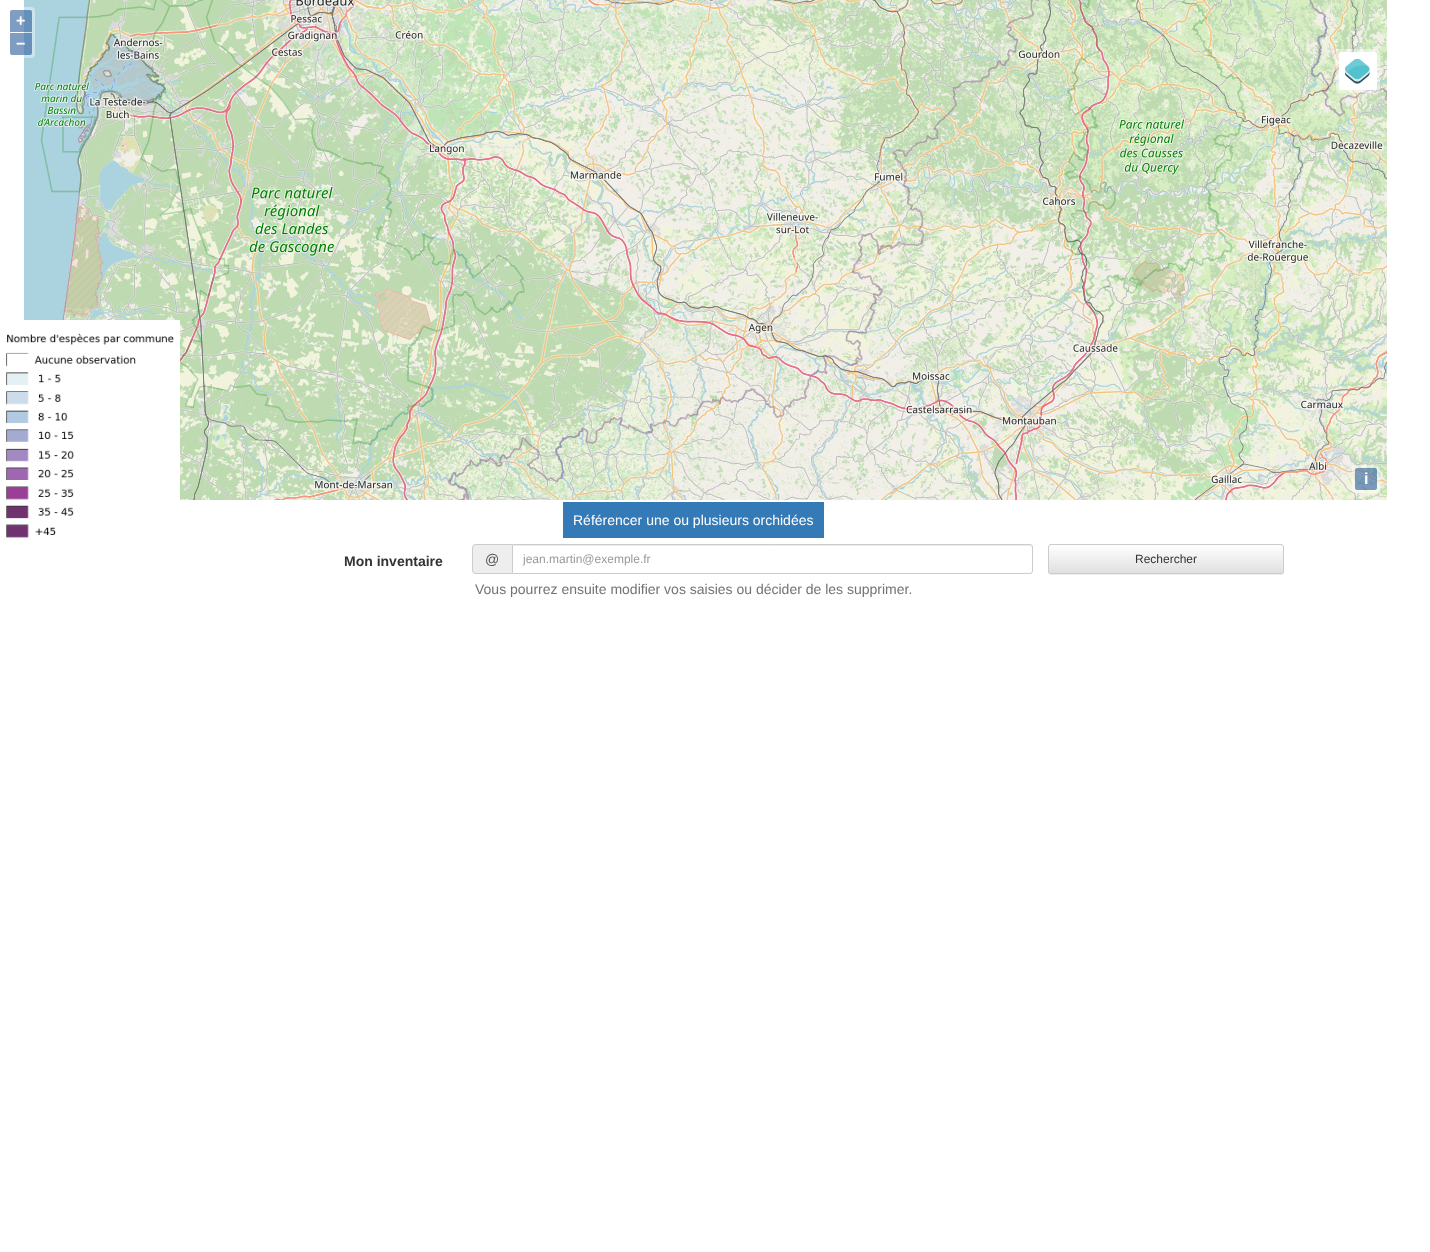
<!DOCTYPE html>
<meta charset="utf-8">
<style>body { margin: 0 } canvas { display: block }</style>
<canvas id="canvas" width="1430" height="1252"></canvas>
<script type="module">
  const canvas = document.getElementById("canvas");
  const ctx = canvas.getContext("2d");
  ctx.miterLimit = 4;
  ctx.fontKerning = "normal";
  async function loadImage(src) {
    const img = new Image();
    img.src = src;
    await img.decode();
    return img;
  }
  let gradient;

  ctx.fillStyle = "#ffffff";
  ctx.fillRect(0, 0, 1430, 1252);
  ctx.drawImage(await loadImage("img1.png"), 24, 0, 1363, 500);
  ctx.fillStyle = "rgba(255, 255, 255, 0.4)";
  ctx.beginPath();
  ctx.roundRect(7, 7, 28, 51, 4);
  ctx.fill();
  ctx.fillStyle = "rgba(0, 60, 136, 0.5)";
  ctx.beginPath();
  ctx.roundRect(10, 10, 22, 22, [2, 2, 0, 0]);
  ctx.fill();
  ctx.font = "bold 16px Liberation Sans";
  ctx.fillStyle = "#ffffff";
  ctx.fillText("+", 16, 26);
  ctx.fillStyle = "rgba(0, 60, 136, 0.5)";
  ctx.beginPath();
  ctx.roundRect(10, 33, 22, 22, [0, 0, 2, 2]);
  ctx.fill();
  ctx.fillStyle = "#ffffff";
  ctx.fillText("−", 16, 49);
  ctx.fillStyle = "rgba(255, 255, 255, 0.4)";
  ctx.beginPath();
  ctx.roundRect(1336, 49, 44, 44, 4);
  ctx.fill();
  ctx.fillStyle = "#ffffff";
  ctx.beginPath();
  ctx.roundRect(1339, 52, 38, 38, 2);
  ctx.fill();
  ctx.drawImage(await loadImage("img2.png"), 1345, 58, 25, 26);
  ctx.fillStyle = "rgba(255, 255, 255, 0.4)";
  ctx.beginPath();
  ctx.roundRect(1352, 465, 28, 28, 4);
  ctx.fill();
  ctx.fillStyle = "rgba(0, 60, 136, 0.5)";
  ctx.beginPath();
  ctx.roundRect(1355, 468, 22, 22, 2);
  ctx.fill();
  ctx.fillStyle = "#ffffff";
  ctx.fillText("i", 1364, 484);
  ctx.drawImage(await loadImage("img3.png"), 6, 320, 174, 218);
  ctx.fillStyle = "#337ab7";
  ctx.fillRect(563, 502, 261, 36);
  ctx.font = "14px Liberation Sans";
  ctx.fillStyle = "#ffffff";
  ctx.fillText("Référencer une ou plusieurs orchidées", 573, 525);
  ctx.font = "bold 14px Liberation Sans";
  ctx.fillStyle = "#333333";
  ctx.fillText("Mon inventaire", 344, 566);
  ctx.fillStyle = "#eeeeee";
  ctx.beginPath();
  ctx.roundRect(472, 544, 40, 30, [4, 0, 0, 4]);
  ctx.fill();
  ctx.fillStyle = "#cccccc";
  ctx.beginPath();
  ctx.moveTo(476, 544);
  ctx.lineTo(512, 544);
  ctx.lineTo(512, 574);
  ctx.lineTo(476, 574);
  ctx.bezierCurveTo(474, 574, 472, 572, 472, 570);
  ctx.lineTo(472, 548);
  ctx.bezierCurveTo(472, 546, 474, 544, 476, 544);
  ctx.closePath();
  ctx.moveTo(476, 545);
  ctx.lineTo(512, 545);
  ctx.lineTo(512, 573);
  ctx.lineTo(476, 573);
  ctx.bezierCurveTo(474, 573, 473, 572, 473, 570);
  ctx.lineTo(473, 548);
  ctx.bezierCurveTo(473, 546, 474, 545, 476, 545);
  ctx.closePath();
  ctx.fill("evenodd");
  ctx.font = "14px Liberation Sans";
  ctx.fillStyle = "#555555";
  ctx.fillText("@", 485, 564);
  ctx.fillStyle = "#ececec";
  ctx.beginPath();
  ctx.moveTo(513, 546);
  ctx.lineTo(1030, 546);
  ctx.bezierCurveTo(1031, 546, 1032, 547, 1032, 548);
  ctx.lineTo(1032, 546);
  ctx.lineTo(1030, 545);
  ctx.lineTo(513, 545);
  ctx.closePath();
  ctx.fill();
  ctx.beginPath();
  ctx.roundRect(512.5, 544.5, 520, 29, [0, 2.5, 2.5, 0]);
  ctx.strokeStyle = "#cccccc";
  ctx.stroke();
  ctx.font = "12px Liberation Sans";
  ctx.fillStyle = "#999999";
  ctx.fillText("jean.martin@exemple.fr", 523, 563);
  ctx.fillStyle = "rgba(0, 0, 0, 0.07)";
  ctx.filter = "blur(0.5px)";
  ctx.beginPath();
  ctx.roundRect(1048, 545, 236, 30, 3);
  ctx.fill();
  ctx.filter = "none";
  ctx.save();
  ctx.beginPath();
  ctx.roundRect(1048, 544, 236, 30, 3);
  ctx.clip();
  gradient = ctx.createLinearGradient(1166, 545, 1166, 573);
  gradient.addColorStop(0, "#ffffff");
  gradient.addColorStop(1, "#e0e0e0");
  ctx.fillStyle = gradient;
  ctx.fillRect(1048, 545, 236, 28);
  ctx.restore();
  ctx.beginPath();
  ctx.roundRect(1048.5, 544.5, 235, 29, 2.5);
  ctx.stroke();
  ctx.fillStyle = "#333333";
  ctx.fillText("Rechercher", 1135, 563);
  ctx.font = "14px Liberation Sans";
  ctx.fillStyle = "#737373";
  ctx.fillText("Vous pourrez ensuite modifier vos saisies ou décider de les supprimer.", 475, 594);
</script>
